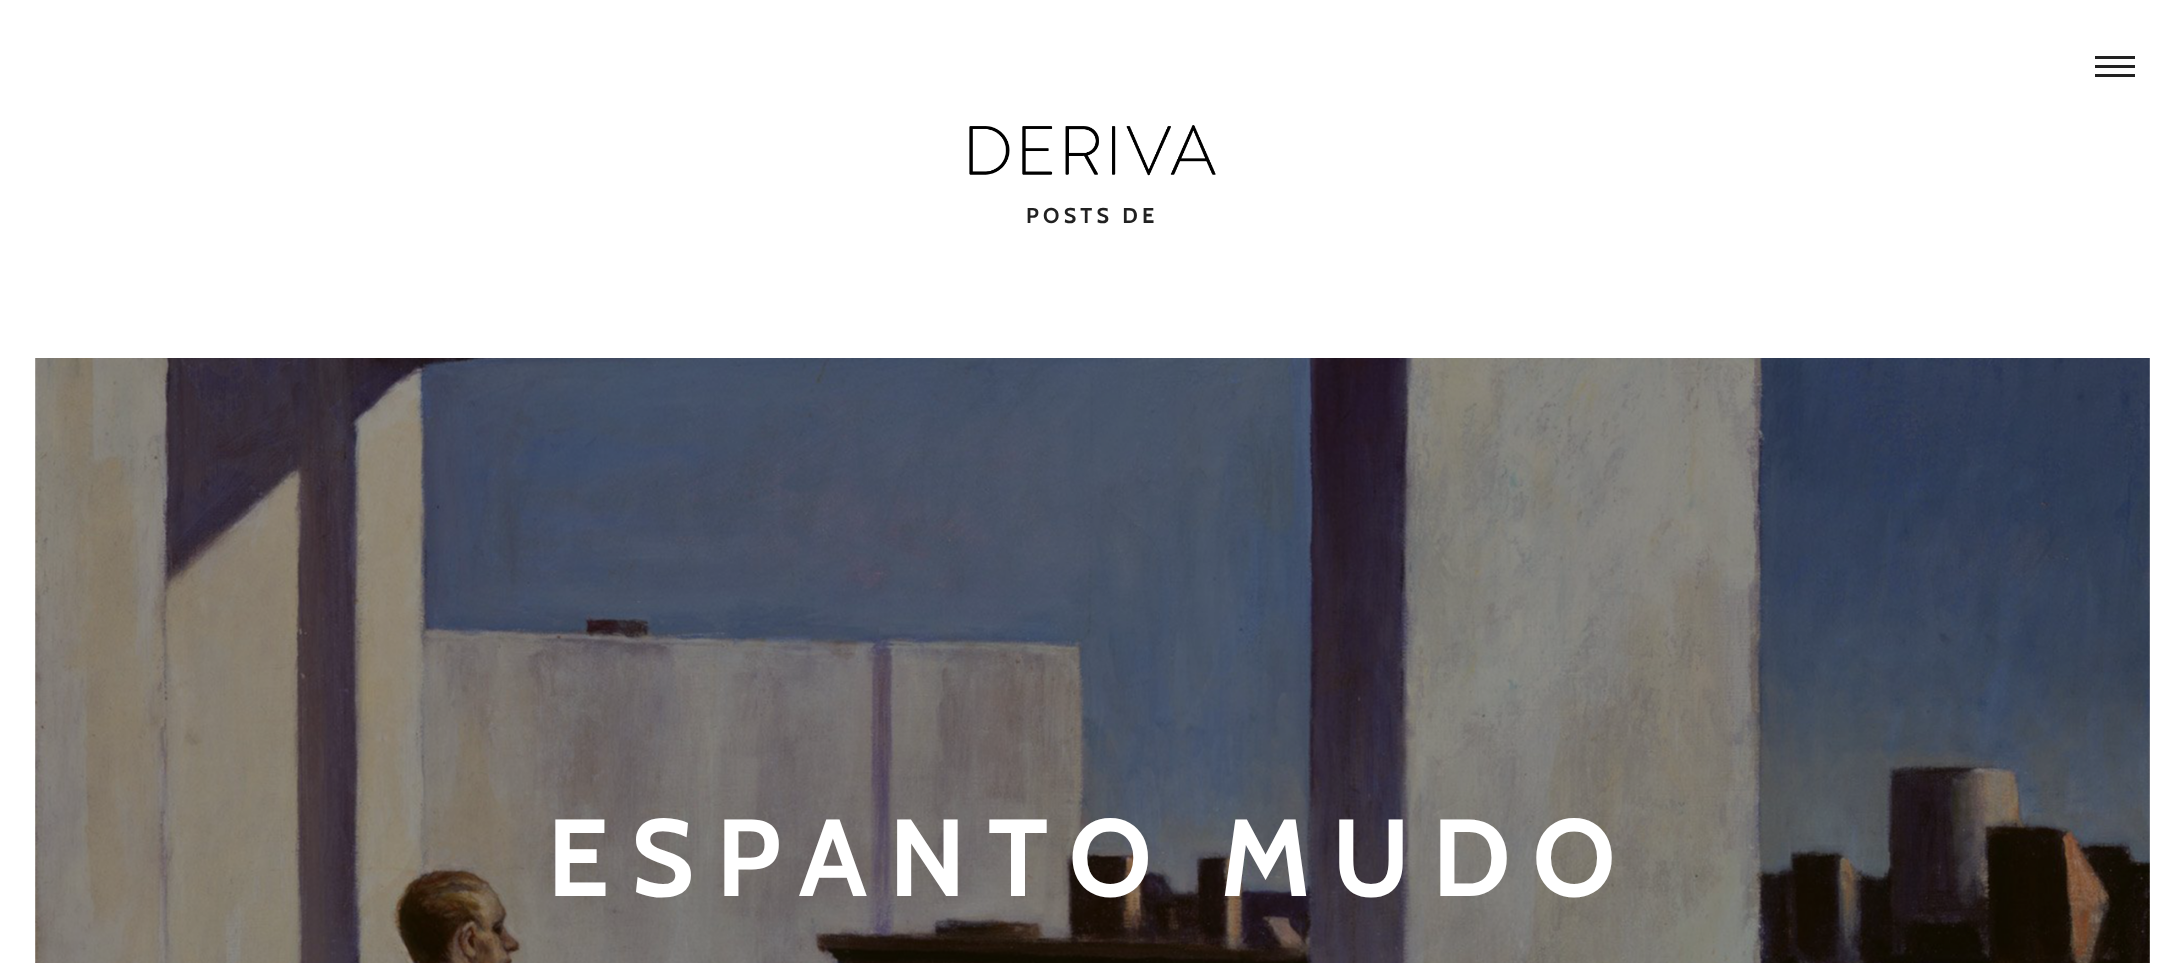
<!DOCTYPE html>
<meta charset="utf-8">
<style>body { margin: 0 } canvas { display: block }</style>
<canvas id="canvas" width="2184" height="963"></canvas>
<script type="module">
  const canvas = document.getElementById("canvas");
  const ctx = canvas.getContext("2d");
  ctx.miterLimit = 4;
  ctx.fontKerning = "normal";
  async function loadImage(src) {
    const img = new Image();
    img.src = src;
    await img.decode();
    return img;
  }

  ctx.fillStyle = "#ffffff";
  ctx.fillRect(0, 0, 2184, 963);
  ctx.fillStyle = "#212121";
  ctx.fillRect(2095, 65, 40, 3);
  ctx.fillRect(2095, 56, 40, 3);
  ctx.fillRect(2095, 74, 40, 3);
  ctx.drawImage(await loadImage("img1.png"), 969, 125, 247, 51);
  ctx.letterSpacing = "4.25px";
  ctx.font = "bold 21.5px Cabin";
  ctx.fillText("POSTS DE", 1026, 223);
  ctx.drawImage(await loadImage("img2.png"), 35, 358, 2115, 605);
  ctx.letterSpacing = "21.8px";
  ctx.font = "bold 109.25px Cabin";
  ctx.fillStyle = "#ffffff";
  ctx.fillText("ESPANTO MUDO", 547, 896);
</script>
